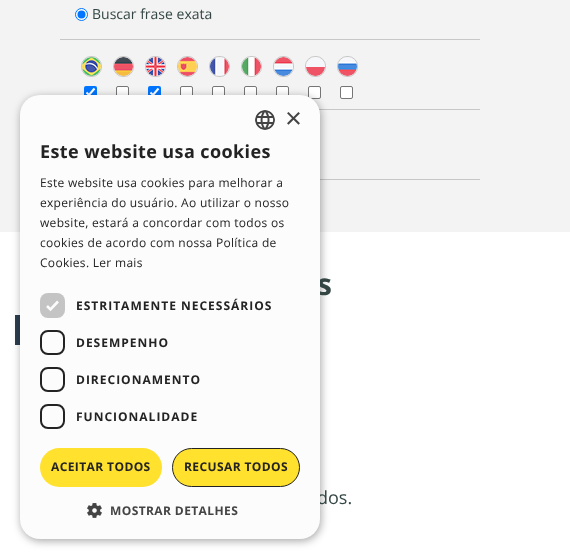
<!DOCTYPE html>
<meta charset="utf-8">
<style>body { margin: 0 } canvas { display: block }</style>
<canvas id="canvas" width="570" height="559"></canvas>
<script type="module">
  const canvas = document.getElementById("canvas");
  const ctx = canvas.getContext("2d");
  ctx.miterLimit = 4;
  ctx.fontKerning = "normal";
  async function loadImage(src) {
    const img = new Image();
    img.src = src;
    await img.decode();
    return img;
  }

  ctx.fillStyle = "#ffffff";
  ctx.fillRect(0, 0, 570, 559);
  ctx.fillStyle = "#f3f3f3";
  ctx.fillRect(0, 0, 570, 232);
  ctx.fillStyle = "#ffffff";
  ctx.beginPath();
  ctx.arc(81.5, 14.5, 6, 0, Math.PI * 2);
  ctx.fill();
  ctx.strokeStyle = "#0075ff";
  ctx.stroke();
  ctx.fillStyle = "#0075ff";
  ctx.beginPath();
  ctx.arc(81.5, 14.5, 4, 0, Math.PI * 2);
  ctx.fill();
  ctx.font = "14px Open Sans";
  ctx.fillStyle = "#344644";
  ctx.fillText("Buscar frase exata", 92, 19);
  ctx.fillStyle = "#c7c7c7";
  ctx.fillRect(60, 39, 420, 1);
  ctx.beginPath();
  ctx.roundRect(81.5, 56.5, 20, 20, 9.5);
  ctx.strokeStyle = "#c7c7c7";
  ctx.stroke();
  ctx.drawImage(await loadImage("img1.png"), 82, 57, 19, 19);
  ctx.fillStyle = "#0075ff";
  ctx.beginPath();
  ctx.roundRect(84, 86, 13, 13, 2);
  ctx.fill();
  ctx.beginPath();
  ctx.moveTo(86.5, 92.5);
  ctx.lineTo(89, 95);
  ctx.lineTo(94.5, 88.5);
  ctx.strokeStyle = "#ffffff";
  ctx.lineWidth = 2.1;
  ctx.stroke();
  ctx.beginPath();
  ctx.roundRect(113.5, 56.5, 20, 20, 9.5);
  ctx.strokeStyle = "#c7c7c7";
  ctx.lineWidth = 1;
  ctx.stroke();
  ctx.drawImage(await loadImage("img2.png"), 114, 57, 19, 19);
  ctx.fillStyle = "#ffffff";
  ctx.beginPath();
  ctx.roundRect(116.5, 86.5, 12, 12, 1.5);
  ctx.fill();
  ctx.strokeStyle = "#767676";
  ctx.stroke();
  ctx.beginPath();
  ctx.roundRect(145.5, 56.5, 20, 20, 9.5);
  ctx.strokeStyle = "#c7c7c7";
  ctx.stroke();
  ctx.drawImage(await loadImage("img3.png"), 146, 57, 19, 19);
  ctx.fillStyle = "#0075ff";
  ctx.beginPath();
  ctx.roundRect(148, 86, 13, 13, 2);
  ctx.fill();
  ctx.beginPath();
  ctx.moveTo(150.5, 92.5);
  ctx.lineTo(153, 95);
  ctx.lineTo(158.5, 88.5);
  ctx.strokeStyle = "#ffffff";
  ctx.lineWidth = 2.1;
  ctx.stroke();
  ctx.beginPath();
  ctx.roundRect(177.5, 56.5, 20, 20, 9.5);
  ctx.strokeStyle = "#c7c7c7";
  ctx.lineWidth = 1;
  ctx.stroke();
  ctx.drawImage(await loadImage("img4.png"), 178, 57, 19, 19);
  ctx.fillStyle = "#ffffff";
  ctx.beginPath();
  ctx.roundRect(180.5, 86.5, 12, 12, 1.5);
  ctx.fill();
  ctx.strokeStyle = "#767676";
  ctx.stroke();
  ctx.beginPath();
  ctx.roundRect(209.5, 56.5, 20, 20, 9.5);
  ctx.strokeStyle = "#c7c7c7";
  ctx.stroke();
  ctx.drawImage(await loadImage("img5.png"), 210, 57, 19, 19);
  ctx.beginPath();
  ctx.roundRect(212.5, 86.5, 12, 12, 1.5);
  ctx.fill();
  ctx.strokeStyle = "#767676";
  ctx.stroke();
  ctx.beginPath();
  ctx.roundRect(241.5, 56.5, 20, 20, 9.5);
  ctx.strokeStyle = "#c7c7c7";
  ctx.stroke();
  ctx.drawImage(await loadImage("img6.png"), 242, 57, 19, 19);
  ctx.beginPath();
  ctx.roundRect(244.5, 86.5, 12, 12, 1.5);
  ctx.fill();
  ctx.strokeStyle = "#767676";
  ctx.stroke();
  ctx.beginPath();
  ctx.roundRect(273.5, 56.5, 20, 20, 9.5);
  ctx.strokeStyle = "#c7c7c7";
  ctx.stroke();
  ctx.drawImage(await loadImage("img7.png"), 274, 57, 19, 19);
  ctx.beginPath();
  ctx.roundRect(276.5, 86.5, 12, 12, 1.5);
  ctx.fill();
  ctx.strokeStyle = "#767676";
  ctx.stroke();
  ctx.beginPath();
  ctx.roundRect(305.5, 56.5, 20, 20, 9.5);
  ctx.strokeStyle = "#c7c7c7";
  ctx.stroke();
  ctx.drawImage(await loadImage("img8.png"), 306, 57, 19, 19);
  ctx.beginPath();
  ctx.roundRect(308.5, 86.5, 12, 12, 1.5);
  ctx.fill();
  ctx.strokeStyle = "#767676";
  ctx.stroke();
  ctx.beginPath();
  ctx.roundRect(337.5, 56.5, 20, 20, 9.5);
  ctx.strokeStyle = "#c7c7c7";
  ctx.stroke();
  ctx.drawImage(await loadImage("img9.png"), 338, 57, 19, 19);
  ctx.beginPath();
  ctx.roundRect(340.5, 86.5, 12, 12, 1.5);
  ctx.fill();
  ctx.strokeStyle = "#767676";
  ctx.stroke();
  ctx.fillStyle = "#c7c7c7";
  ctx.fillRect(319, 109, 161, 1);
  ctx.fillRect(320, 179, 160, 1);
  ctx.fillStyle = "#2c3e50";
  ctx.fillRect(15, 315, 5, 30);
  ctx.fillStyle = "rgba(0, 0, 0, 0.35)";
  ctx.filter = "blur(4px)";
  ctx.beginPath();
  ctx.roundRect(21, 97, 300, 444, 20);
  ctx.fill();
  ctx.filter = "none";
  ctx.font = "bold 30px Open Sans";
  ctx.fillStyle = "#344644";
  ctx.fillText("s", 317, 295);
  ctx.font = "18px Open Sans";
  ctx.fillText("dos.", 317, 504);
  ctx.fillStyle = "#fcfcfc";
  ctx.beginPath();
  ctx.roundRect(20, 95, 300, 444, 20);
  ctx.fill();
  ctx.drawImage(await loadImage("img10.png"), 255, 110, 20, 20);
  ctx.font = "29px Liberation Sans";
  ctx.fillStyle = "#444444";
  ctx.fillText("×", 285, 128);
  ctx.letterSpacing = "0.4px";
  ctx.font = "bold 18px Open Sans";
  ctx.fillStyle = "#232323";
  ctx.fillText("Este website usa cookies", 40, 158);
  ctx.letterSpacing = "0.3px";
  ctx.font = "12px Open Sans";
  ctx.fillText("Este website usa cookies para melhorar a", 40, 187);
  ctx.fillText("experiência do usuário. Ao utilizar o nosso", 40, 207);
  ctx.fillText("website, estará a concordar com todos os", 40, 227);
  ctx.fillText("cookies de acordo com nossa Política de", 40, 247);
  ctx.fillText("Cookies. Ler mais", 40, 267);
  ctx.fillStyle = "#c4c4c4";
  ctx.beginPath();
  ctx.roundRect(40, 293, 25, 25, 8);
  ctx.fill();
  ctx.beginPath();
  ctx.moveTo(47, 306);
  ctx.lineTo(50.5, 309.5);
  ctx.lineTo(58, 301.5);
  ctx.strokeStyle = "#fcfcfc";
  ctx.lineWidth = 2.6;
  ctx.stroke();
  ctx.letterSpacing = "1px";
  ctx.font = "bold 12px Open Sans";
  ctx.fillStyle = "#232323";
  ctx.fillText("ESTRITAMENTE NECESSÁRIOS", 76, 310);
  ctx.beginPath();
  ctx.roundRect(41, 331, 23, 23, 7);
  ctx.strokeStyle = "#232323";
  ctx.lineWidth = 2;
  ctx.stroke();
  ctx.fillText("DESEMPENHO", 76, 347);
  ctx.beginPath();
  ctx.roundRect(41, 368, 23, 23, 7);
  ctx.stroke();
  ctx.fillText("DIRECIONAMENTO", 76, 384);
  ctx.beginPath();
  ctx.roundRect(41, 405, 23, 23, 7);
  ctx.stroke();
  ctx.fillText("FUNCIONALIDADE", 76, 421);
  ctx.fillStyle = "#ffe12e";
  ctx.beginPath();
  ctx.roundRect(40, 448, 122, 39, 19.5);
  ctx.fill();
  ctx.letterSpacing = "0.4px";
  ctx.fillStyle = "#232323";
  ctx.fillText("ACEITAR TODOS", 51, 471);
  ctx.fillStyle = "#ffe12e";
  ctx.beginPath();
  ctx.roundRect(172.5, 448.5, 127, 38, 19);
  ctx.fill();
  ctx.lineWidth = 1;
  ctx.stroke();
  ctx.fillStyle = "#232323";
  ctx.fillText("RECUSAR TODOS", 184, 471);
  ctx.drawImage(await loadImage("img11.png"), 87, 503, 15, 15);
  ctx.fillStyle = "#444444";
  ctx.fillText("MOSTRAR DETALHES", 110, 515);
</script>
